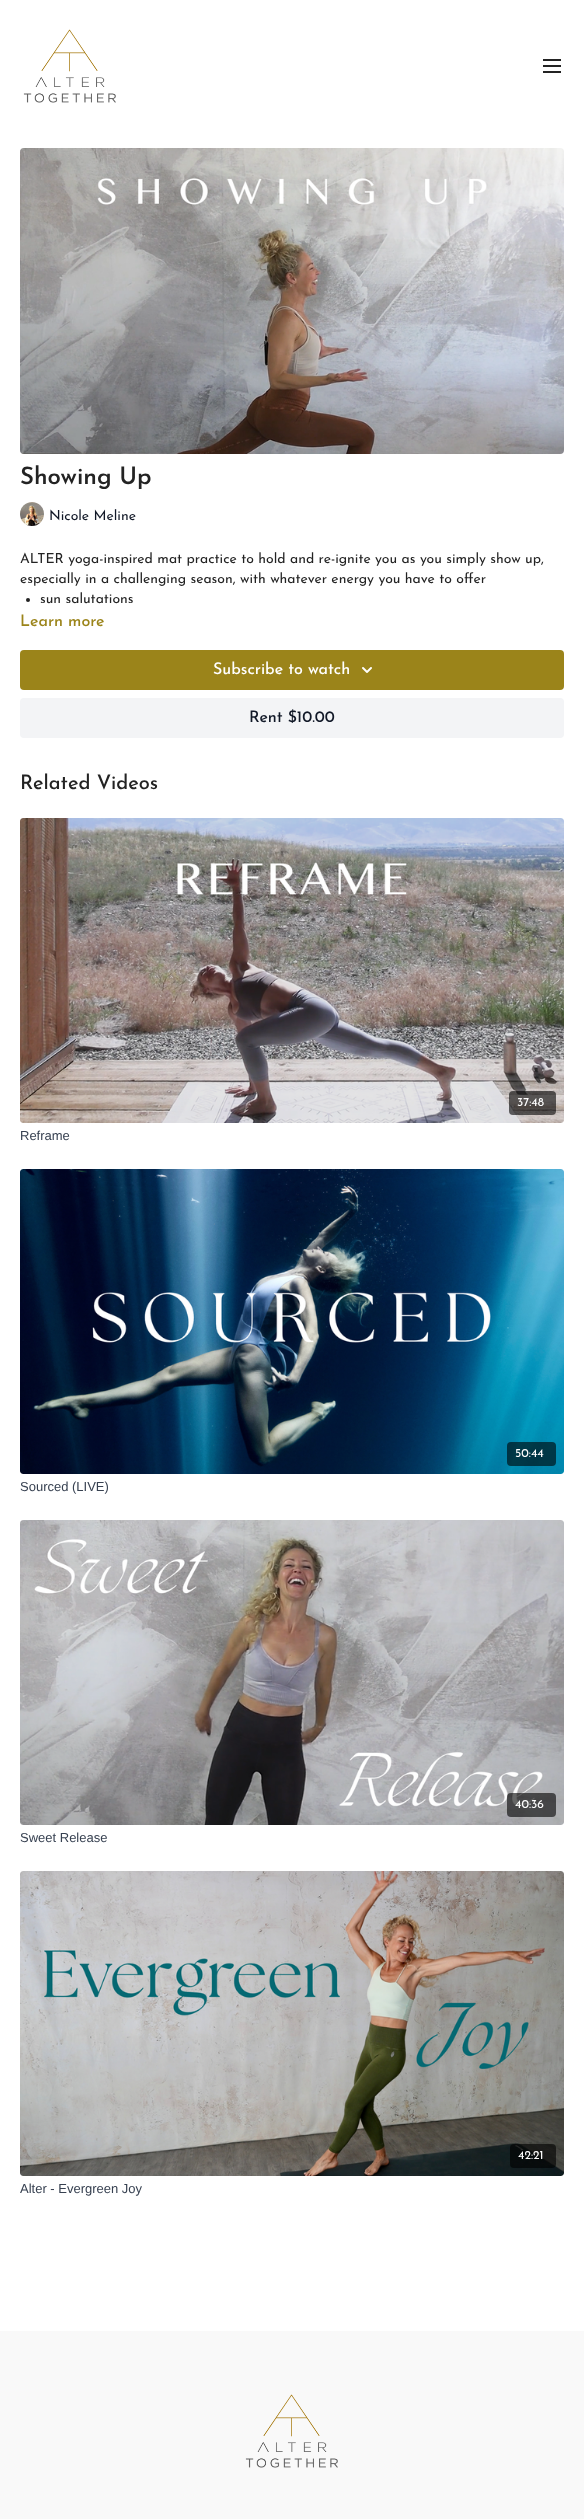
<!DOCTYPE html>
<meta charset="utf-8">
<style>body { margin: 0 } canvas { display: block }</style>
<canvas id="canvas" width="584" height="2519"></canvas>
<script type="module">
  const canvas = document.getElementById("canvas");
  const ctx = canvas.getContext("2d");
  ctx.miterLimit = 4;
  ctx.fontKerning = "normal";
  async function loadImage(src) {
    const img = new Image();
    img.src = src;
    await img.decode();
    return img;
  }

  ctx.fillStyle = "#ffffff";
  ctx.fillRect(0, 0, 584, 2519);
  ctx.drawImage(await loadImage("img1.png"), 23, 29, 93, 74);
  ctx.fillStyle = "#232323";
  ctx.fillRect(543, 59, 18, 2);
  ctx.fillRect(543, 65, 18, 2);
  ctx.fillRect(543, 71, 18, 2);
  ctx.drawImage(await loadImage("img2.png"), 20, 148, 544, 306);
  ctx.font = "600 24px Josefin Sans";
  ctx.fillText("Showing Up", 20, 484);
  ctx.drawImage(await loadImage("img3.png"), 20, 502, 24, 24);
  ctx.font = "14px Josefin Sans";
  ctx.fillStyle = "#111827";
  ctx.fillText("Nicole Meline", 49, 520);
  ctx.fillStyle = "#232323";
  ctx.fillText("ALTER yoga-inspired mat practice to hold and re-ignite you as you simply show up,", 20, 563);
  ctx.fillText("especially in a challenging season, with whatever energy you have to offer", 20, 583);
  ctx.beginPath();
  ctx.arc(28, 600, 2, 0, Math.PI * 2);
  ctx.fill();
  ctx.fillText("sun salutations", 40, 603);
  ctx.font = "500 16px Josefin Sans";
  ctx.fillStyle = "#9b841a";
  ctx.fillText("Learn more", 20, 626);
  ctx.beginPath();
  ctx.roundRect(20, 650, 544, 40, 4);
  ctx.fill();
  ctx.fillStyle = "#ffffff";
  ctx.fillText("Subscribe to watch", 213, 674);
  ctx.drawImage(await loadImage("img4.png"), 362, 667, 10, 6);
  ctx.fillStyle = "#f3f4f6";
  ctx.beginPath();
  ctx.roundRect(20, 698, 544, 40, 4);
  ctx.fill();
  ctx.fillStyle = "#111827";
  ctx.fillText("Rent $10.00", 249, 722);
  ctx.font = "500 20px Josefin Sans";
  ctx.fillStyle = "#232323";
  ctx.fillText("Related Videos", 20, 789);
  ctx.drawImage(await loadImage("img5.png"), 20, 818, 544, 305);
  ctx.fillStyle = "rgba(0, 0, 0, 0.6)";
  ctx.beginPath();
  ctx.roundRect(509, 1091, 47, 24, 4);
  ctx.fill();
  ctx.font = "12px Josefin Sans";
  ctx.fillStyle = "#ffffff";
  ctx.fillText("37:48", 517, 1106);
  ctx.font = "13px Liberation Sans";
  ctx.fillStyle = "#374151";
  ctx.fillText("Reframe", 20, 1140);
  ctx.drawImage(await loadImage("img6.png"), 20, 1169, 544, 305);
  ctx.fillStyle = "rgba(0, 0, 0, 0.6)";
  ctx.beginPath();
  ctx.roundRect(507, 1442, 49, 24, 4);
  ctx.fill();
  ctx.font = "12px Josefin Sans";
  ctx.fillStyle = "#ffffff";
  ctx.fillText("50:44", 515, 1457);
  ctx.font = "13px Liberation Sans";
  ctx.fillStyle = "#374151";
  ctx.fillText("Sourced (LIVE)", 20, 1491);
  ctx.drawImage(await loadImage("img7.png"), 20, 1520, 544, 305);
  ctx.fillStyle = "rgba(0, 0, 0, 0.6)";
  ctx.beginPath();
  ctx.roundRect(507, 1793, 49, 24, 4);
  ctx.fill();
  ctx.font = "12px Josefin Sans";
  ctx.fillStyle = "#ffffff";
  ctx.fillText("40:36", 515, 1808);
  ctx.font = "13px Liberation Sans";
  ctx.fillStyle = "#374151";
  ctx.fillText("Sweet Release", 20, 1842);
  ctx.drawImage(await loadImage("img8.png"), 20, 1871, 544, 305);
  ctx.fillStyle = "rgba(0, 0, 0, 0.6)";
  ctx.beginPath();
  ctx.roundRect(510, 2144, 46, 24, 4);
  ctx.fill();
  ctx.font = "12px Josefin Sans";
  ctx.fillStyle = "#ffffff";
  ctx.fillText("42:21", 518, 2159);
  ctx.font = "13px Liberation Sans";
  ctx.fillStyle = "#374151";
  ctx.fillText("Alter - Evergreen Joy", 20, 2193);
  ctx.fillStyle = "#f9f9f9";
  ctx.fillRect(0, 2331, 584, 188);
  ctx.drawImage(await loadImage("img9.png"), 245, 2394, 93, 74);
</script>
